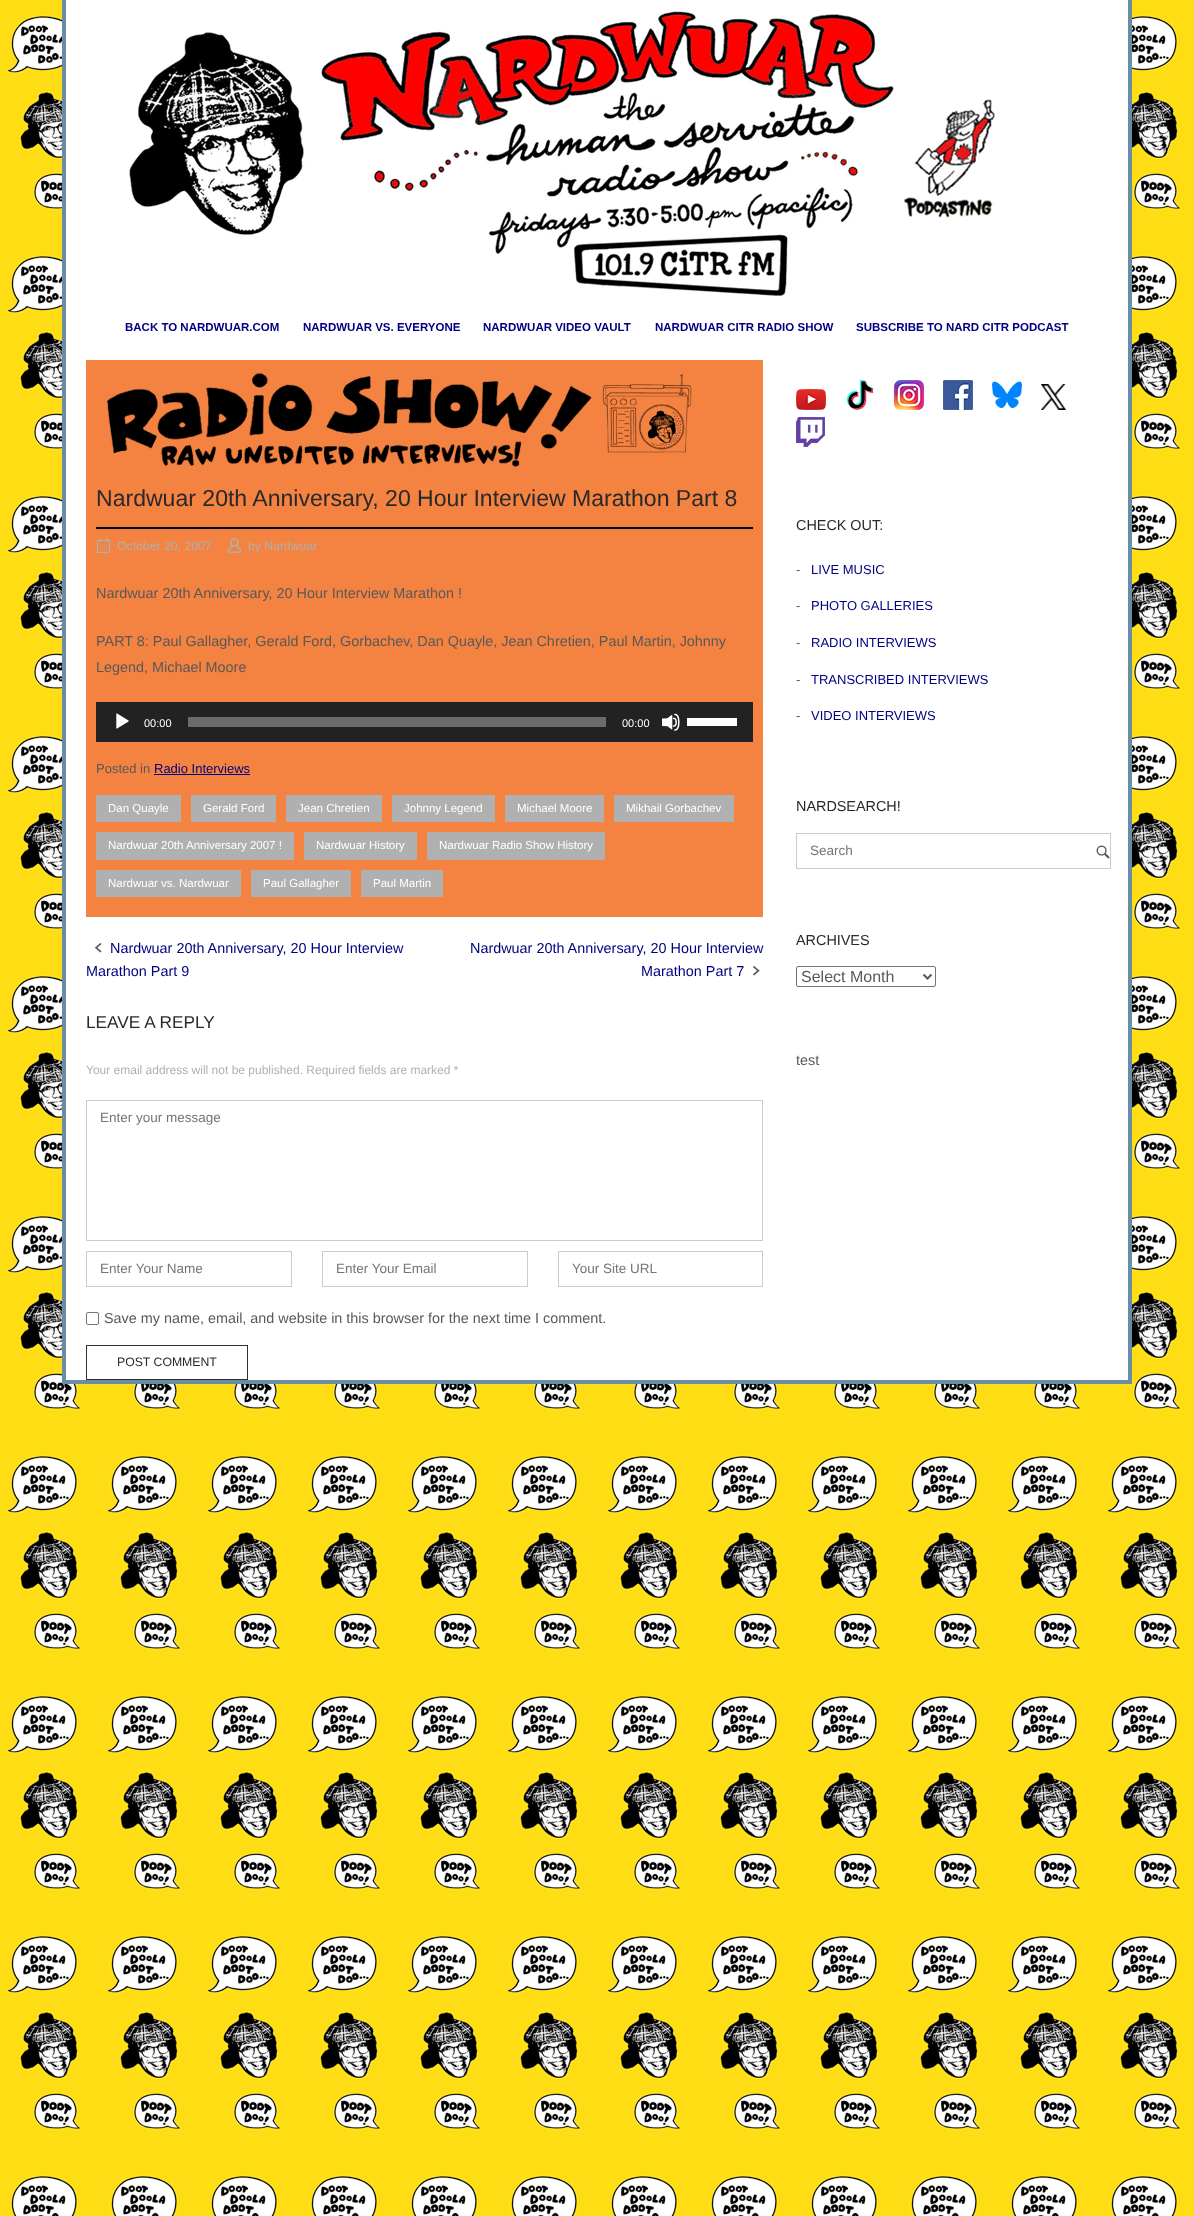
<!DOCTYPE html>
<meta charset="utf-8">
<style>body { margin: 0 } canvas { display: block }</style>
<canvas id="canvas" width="1194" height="2216"></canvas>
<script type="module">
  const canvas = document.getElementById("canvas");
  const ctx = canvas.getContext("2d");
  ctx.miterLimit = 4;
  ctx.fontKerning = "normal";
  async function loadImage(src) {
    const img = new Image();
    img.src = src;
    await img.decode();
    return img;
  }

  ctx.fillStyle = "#ffffff";
  ctx.fillRect(0, 0, 1194, 2216);
  ctx.drawImage(await loadImage("img1.png"), 0, 0, 1194, 2216);
  ctx.fillRect(66, 0, 1062, 1380);
  ctx.fillStyle = "#688da5";
  ctx.fillRect(1128, 0, 4, 1384);
  ctx.fillRect(62, 1380, 1070, 4);
  ctx.fillRect(62, 0, 4, 1384);
  ctx.drawImage(await loadImage("img2.png"), 129, 11, 866, 285);
  ctx.font = "bold 11.5px Liberation Sans";
  ctx.fillStyle = "#000080";
  ctx.fillText("BACK TO NARDWUAR.COM", 125, 331);
  ctx.fillText("NARDWUAR VS. EVERYONE", 303, 331);
  ctx.fillText("NARDWUAR VIDEO VAULT", 483, 331);
  ctx.fillText("NARDWUAR CITR RADIO SHOW", 655, 331);
  ctx.fillText("SUBSCRIBE TO NARD CITR PODCAST", 856, 331);
  ctx.fillStyle = "#f48241";
  ctx.fillRect(86, 360, 677, 557);
  ctx.drawImage(await loadImage("img3.png"), 107, 373, 585, 94);
  ctx.fillStyle = "#000000";
  ctx.fillRect(96, 527, 657, 2);
  ctx.font = "23.05px Liberation Sans";
  ctx.fillStyle = "#292929";
  ctx.fillText("Nardwuar 20th Anniversary, 20 Hour Interview Marathon Part 8", 96, 506);
  ctx.drawImage(await loadImage("img4.png"), 96, 538, 15, 15);
  ctx.font = "12.25px Liberation Sans";
  ctx.fillStyle = "#b0b0b0";
  ctx.fillText("October 20, 2007", 117, 550);
  ctx.drawImage(await loadImage("img5.png"), 227, 538, 15, 15);
  ctx.fillText("by Nardwuar", 248, 550);
  ctx.font = "14.4px Liberation Sans";
  ctx.fillStyle = "#595959";
  ctx.fillText("Nardwuar 20th Anniversary, 20 Hour Interview Marathon !", 96, 598);
  ctx.fillText("PART 8: Paul Gallagher, Gerald Ford, Gorbachev, Dan Quayle, Jean Chretien, Paul Martin, Johnny", 96, 646);
  ctx.fillText("Legend, Michael Moore", 96, 672);
  ctx.fillStyle = "#222222";
  ctx.fillRect(96, 702, 657, 40);
  ctx.drawImage(await loadImage("img6.png"), 116, 713, 13, 16);
  ctx.font = "11px Liberation Sans";
  ctx.fillStyle = "#ffffff";
  ctx.fillText("00:00", 144, 727);
  ctx.fillStyle = "#6b6b6b";
  ctx.fillRect(188, 717, 418, 10);
  ctx.fillStyle = "#ffffff";
  ctx.fillText("00:00", 622, 727);
  ctx.drawImage(await loadImage("img7.png"), 662, 713, 18, 18);
  ctx.fillRect(687, 718, 50, 8);
  ctx.font = "13px Liberation Sans";
  ctx.fillStyle = "#595959";
  ctx.fillText("Posted in", 96, 773);
  ctx.fillStyle = "#000080";
  ctx.fillText("Radio Interviews", 154, 773);
  ctx.fillRect(154, 774, 96, 1);
  ctx.fillStyle = "#b0b0b0";
  ctx.fillRect(96, 795, 85, 27);
  ctx.font = "11.5px Liberation Sans";
  ctx.fillStyle = "#ffffff";
  ctx.fillText("Dan Quayle", 108, 812);
  ctx.fillStyle = "#b0b0b0";
  ctx.fillRect(191, 795, 85, 27);
  ctx.fillStyle = "#ffffff";
  ctx.fillText("Gerald Ford", 203, 812);
  ctx.fillStyle = "#b0b0b0";
  ctx.fillRect(286, 795, 96, 27);
  ctx.fillStyle = "#ffffff";
  ctx.fillText("Jean Chretien", 298, 812);
  ctx.fillStyle = "#b0b0b0";
  ctx.fillRect(392, 795, 103, 27);
  ctx.fillStyle = "#ffffff";
  ctx.fillText("Johnny Legend", 404, 812);
  ctx.fillStyle = "#b0b0b0";
  ctx.fillRect(505, 795, 99, 27);
  ctx.fillStyle = "#ffffff";
  ctx.fillText("Michael Moore", 517, 812);
  ctx.fillStyle = "#b0b0b0";
  ctx.fillRect(614, 795, 120, 27);
  ctx.fillStyle = "#ffffff";
  ctx.fillText("Mikhail Gorbachev", 626, 812);
  ctx.fillStyle = "#b0b0b0";
  ctx.fillRect(96, 832, 198, 28);
  ctx.fillStyle = "#ffffff";
  ctx.fillText("Nardwuar 20th Anniversary 2007 !", 108, 849);
  ctx.fillStyle = "#b0b0b0";
  ctx.fillRect(304, 832, 113, 28);
  ctx.fillStyle = "#ffffff";
  ctx.fillText("Nardwuar History", 316, 849);
  ctx.fillStyle = "#b0b0b0";
  ctx.fillRect(427, 832, 178, 28);
  ctx.fillStyle = "#ffffff";
  ctx.fillText("Nardwuar Radio Show History", 439, 849);
  ctx.fillStyle = "#b0b0b0";
  ctx.fillRect(96, 870, 145, 27);
  ctx.fillStyle = "#ffffff";
  ctx.fillText("Nardwuar vs. Nardwuar", 108, 887);
  ctx.fillStyle = "#b0b0b0";
  ctx.fillRect(251, 870, 100, 27);
  ctx.fillStyle = "#ffffff";
  ctx.fillText("Paul Gallagher", 263, 887);
  ctx.fillStyle = "#b0b0b0";
  ctx.fillRect(361, 870, 82, 27);
  ctx.fillStyle = "#ffffff";
  ctx.fillText("Paul Martin", 373, 887);
  ctx.drawImage(await loadImage("img8.png"), 94, 943, 8, 10);
  ctx.font = "14.4px Liberation Sans";
  ctx.fillStyle = "#000080";
  ctx.fillText("Nardwuar 20th Anniversary, 20 Hour Interview", 110, 953);
  ctx.fillText("Marathon Part 9", 86, 976);
  ctx.fillText("Nardwuar 20th Anniversary, 20 Hour Interview", 470, 953);
  ctx.fillText("Marathon Part 7", 641, 976);
  ctx.drawImage(await loadImage("img9.png"), 752, 966, 8, 10);
  ctx.font = "17.25px Liberation Sans";
  ctx.fillStyle = "#292929";
  ctx.fillText("LEAVE A REPLY", 86, 1028);
  ctx.font = "12px Liberation Sans";
  ctx.fillStyle = "#b0b0b0";
  ctx.fillText("Your email address will not be published. Required fields are marked *", 86, 1074);
  ctx.strokeStyle = "#cccccc";
  ctx.strokeRect(86.5, 1100.5, 676, 140);
  ctx.font = "13.5px Liberation Sans";
  ctx.fillStyle = "#757575";
  ctx.fillText("Enter your message", 100, 1122);
  ctx.strokeRect(86.5, 1251.5, 205, 35);
  ctx.fillText("Enter Your Name", 100, 1273);
  ctx.strokeRect(322.5, 1251.5, 205, 35);
  ctx.fillText("Enter Your Email", 336, 1273);
  ctx.strokeRect(558.5, 1251.5, 204, 35);
  ctx.fillText("Your Site URL", 572, 1273);
  ctx.beginPath();
  ctx.roundRect(86.5, 1312.5, 12, 12, 1.5);
  ctx.strokeStyle = "#767676";
  ctx.stroke();
  ctx.font = "14.4px Liberation Sans";
  ctx.fillStyle = "#595959";
  ctx.fillText("Save my name, email, and website in this browser for the next time I comment.", 104, 1323);
  ctx.strokeStyle = "#303030";
  ctx.strokeRect(86.5, 1345.5, 161, 34);
  ctx.font = "12.25px Liberation Sans";
  ctx.fillStyle = "#292929";
  ctx.fillText("POST COMMENT", 117, 1366);
  ctx.drawImage(await loadImage("img10.png"), 796, 389, 30, 21);
  ctx.drawImage(await loadImage("img11.png"), 846, 380, 28, 30);
  ctx.drawImage(await loadImage("img12.png"), 894, 380, 30, 30);
  ctx.drawImage(await loadImage("img13.png"), 943, 380, 30, 30);
  ctx.drawImage(await loadImage("img14.png"), 992, 381, 30, 27);
  ctx.drawImage(await loadImage("img15.png"), 1041, 384, 25, 26);
  ctx.drawImage(await loadImage("img16.png"), 796, 417, 29, 30);
  ctx.font = "14.4px Liberation Sans";
  ctx.fillText("CHECK OUT:", 796, 530);
  ctx.font = "13px Liberation Sans";
  ctx.fillStyle = "#595959";
  ctx.fillText("-", 796, 574);
  ctx.fillStyle = "#000080";
  ctx.fillText("LIVE MUSIC", 811, 574);
  ctx.fillStyle = "#595959";
  ctx.fillText("-", 796, 610);
  ctx.fillStyle = "#000080";
  ctx.fillText("PHOTO GALLERIES", 811, 610);
  ctx.fillStyle = "#595959";
  ctx.fillText("-", 796, 647);
  ctx.fillStyle = "#000080";
  ctx.fillText("RADIO INTERVIEWS", 811, 647);
  ctx.fillStyle = "#595959";
  ctx.fillText("-", 796, 684);
  ctx.fillStyle = "#000080";
  ctx.fillText("TRANSCRIBED INTERVIEWS", 811, 684);
  ctx.fillStyle = "#595959";
  ctx.fillText("-", 796, 720);
  ctx.fillStyle = "#000080";
  ctx.fillText("VIDEO INTERVIEWS", 811, 720);
  ctx.font = "14.4px Liberation Sans";
  ctx.fillStyle = "#292929";
  ctx.fillText("NARDSEARCH!", 796, 811);
  ctx.strokeStyle = "#cccccc";
  ctx.strokeRect(796.5, 833.5, 314, 35);
  ctx.font = "13.5px Liberation Sans";
  ctx.fillStyle = "#757575";
  ctx.fillText("Search", 810, 855);
  ctx.drawImage(await loadImage("img17.png"), 1096, 845, 14, 14);
  ctx.font = "14.4px Liberation Sans";
  ctx.fillStyle = "#292929";
  ctx.fillText("ARCHIVES", 796, 945);
  ctx.beginPath();
  ctx.roundRect(796.5, 966.5, 139, 20, 1.5);
  ctx.strokeStyle = "#767676";
  ctx.stroke();
  ctx.beginPath();
  ctx.moveTo(923.5, 974.5);
  ctx.lineTo(927.5, 978.5);
  ctx.lineTo(931.5, 974.5);
  ctx.strokeStyle = "#595959";
  ctx.lineWidth = 2;
  ctx.stroke();
  ctx.font = "16px Liberation Sans";
  ctx.fillStyle = "#595959";
  ctx.fillText("Select Month", 801, 982);
  ctx.font = "14.4px Liberation Sans";
  ctx.fillText("test", 796, 1065);
</script>
